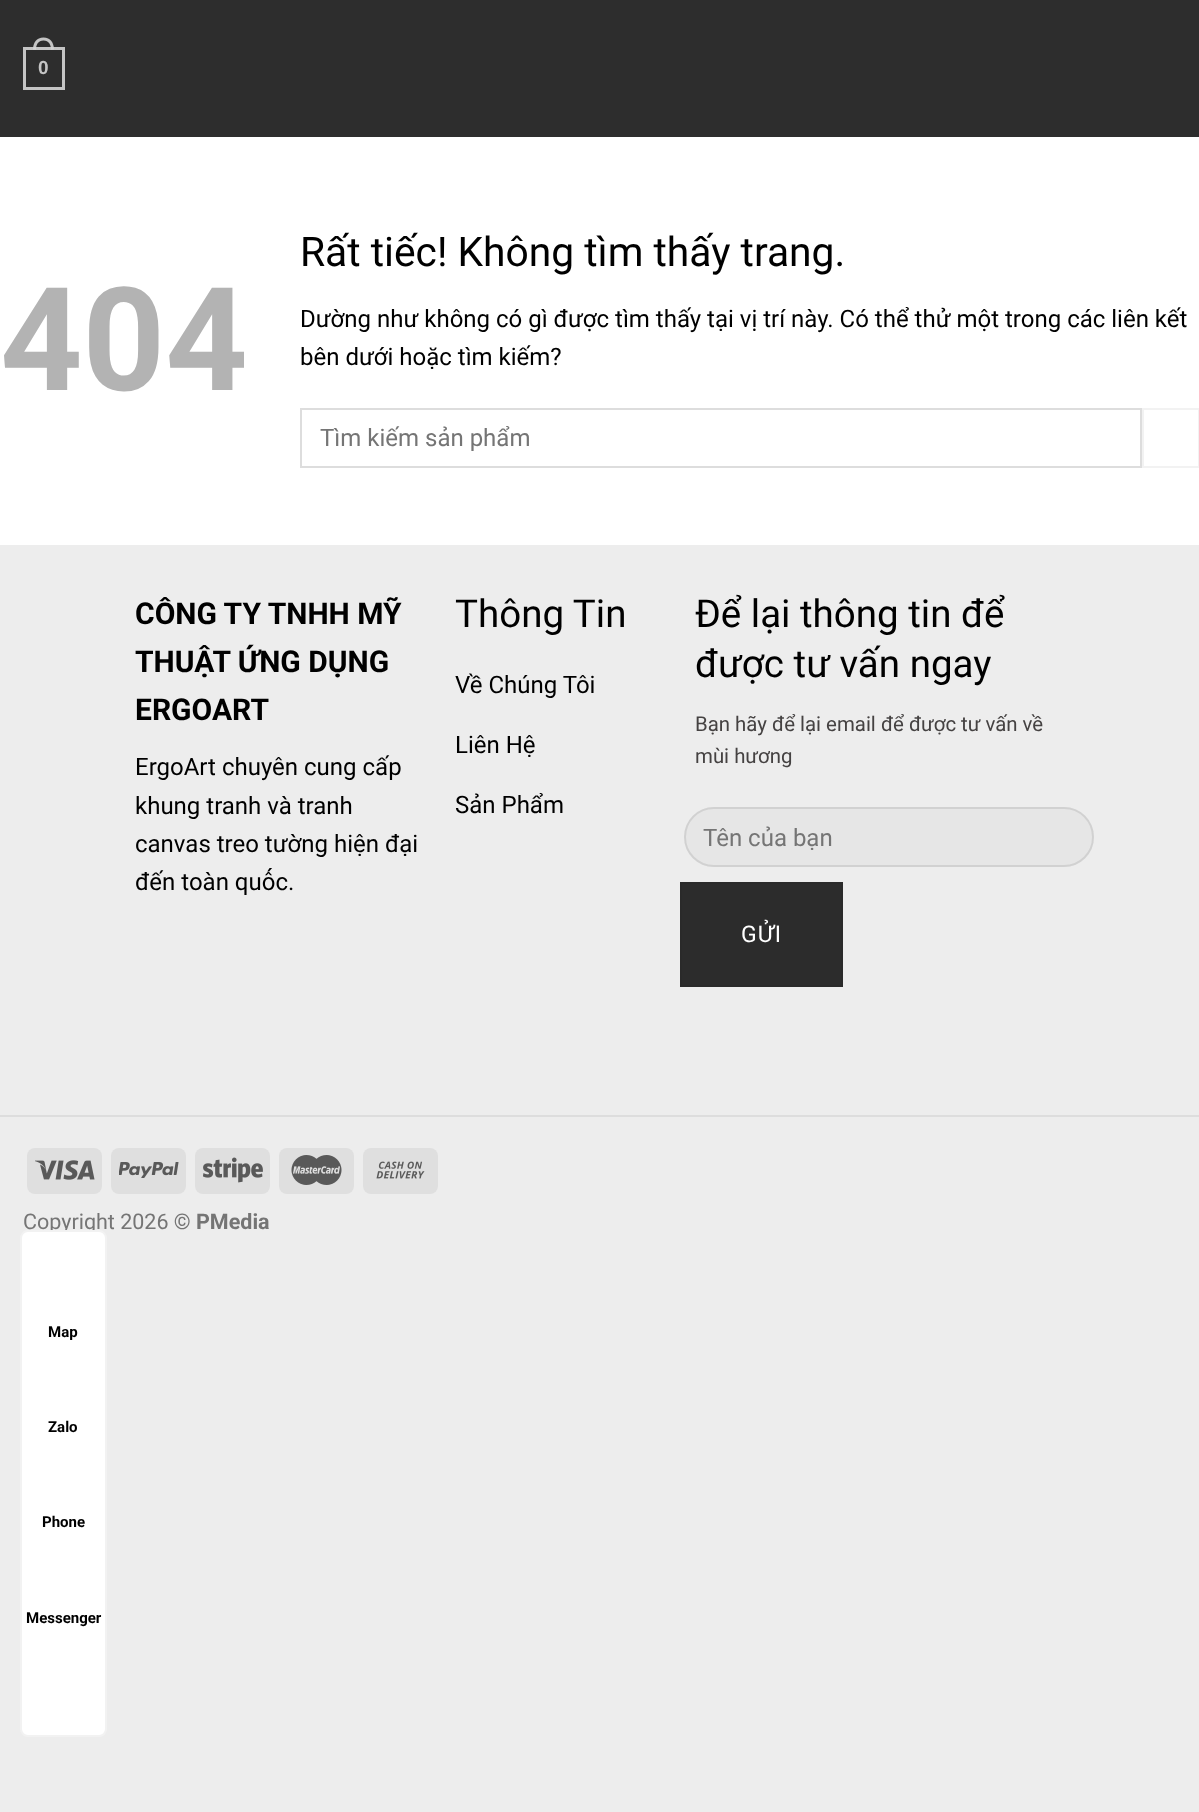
<!DOCTYPE html>
<meta charset="utf-8">
<style>body { margin: 0 } canvas { display: block }</style>
<canvas id="canvas" width="1199" height="1812"></canvas>
<script type="module">
  const canvas = document.getElementById("canvas");
  const ctx = canvas.getContext("2d");
  ctx.miterLimit = 4;
  ctx.fontKerning = "normal";
  async function loadImage(src) {
    const img = new Image();
    img.src = src;
    await img.decode();
    return img;
  }

  ctx.fillStyle = "#ededed";
  ctx.fillRect(0, 0, 1199, 1812);
  ctx.fillStyle = "#ffffff";
  ctx.fillRect(0, 137, 1199, 408);
  ctx.fillStyle = "#2d2d2d";
  ctx.fillRect(0, 0, 1199, 137);
  ctx.strokeStyle = "#c4c4c4";
  ctx.lineWidth = 3;
  ctx.strokeRect(24.5, 48.5, 39, 40);
  ctx.fillStyle = "rgba(211, 211, 211, 0.91)";
  ctx.beginPath();
  ctx.moveTo(43.5, 37.5);
  ctx.bezierCurveTo(50.5, 37.5, 54, 43, 54, 49.5);
  ctx.lineTo(33, 49.5);
  ctx.bezierCurveTo(33, 43, 36.5, 37.5, 43.5, 37.5);
  ctx.closePath();
  ctx.moveTo(43.5, 40.5);
  ctx.bezierCurveTo(49, 40.5, 51, 45, 51, 49.5);
  ctx.lineTo(36, 49.5);
  ctx.bezierCurveTo(36, 45, 38, 40.5, 43.5, 40.5);
  ctx.closePath();
  ctx.fill("evenodd");
  ctx.font = "bold 19px Liberation Sans";
  ctx.fillStyle = "#c4c4c4";
  ctx.fillText("0", 38, 74);
  ctx.font = "bold 144px Roboto";
  ctx.fillStyle = "#b3b3b3";
  ctx.fillText("404", 0, 390);
  ctx.font = "40.75px Roboto";
  ctx.fillStyle = "#000000";
  ctx.fillText("Rất tiếc! Không tìm thấy trang.", 300, 266);
  ctx.font = "24px Roboto";
  ctx.fillText("Dường như không có gì được tìm thấy tại vị trí này. Có thể thử một trong các liên kết", 300, 327);
  ctx.fillText("bên dưới hoặc tìm kiếm?", 300, 365);
  ctx.strokeStyle = "#dddddd";
  ctx.lineWidth = 2;
  ctx.strokeRect(301, 409, 840, 58);
  ctx.fillStyle = "#757575";
  ctx.fillText("Tìm kiếm sản phẩm", 320, 446);
  ctx.strokeStyle = "#f2f2f2";
  ctx.strokeRect(1143, 409, 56, 58);
  ctx.font = "bold 30px Roboto";
  ctx.fillStyle = "#000000";
  ctx.fillText("CÔNG TY TNHH MỸ", 135, 624);
  ctx.fillText("THUẬT ỨNG DỤNG", 135, 672);
  ctx.fillText("ERGOART", 135, 720);
  ctx.font = "24px Roboto";
  ctx.fillText("ErgoArt chuyên cung cấp", 135, 775);
  ctx.fillText("khung tranh và tranh", 135, 814);
  ctx.fillText("canvas treo tường hiện đại", 135, 852);
  ctx.fillText("đến toàn quốc.", 135, 890);
  ctx.font = "38.5px Roboto";
  ctx.fillText("Thông Tin", 455, 627);
  ctx.font = "24px Roboto";
  ctx.fillText("Về Chúng Tôi", 455, 693);
  ctx.fillText("Liên Hệ", 455, 753);
  ctx.fillText("Sản Phẩm", 455, 813);
  ctx.font = "38.5px Roboto";
  ctx.fillText("Để lại thông tin để", 695, 627);
  ctx.fillText("được tư vấn ngay", 695, 677);
  ctx.font = "20.4px Roboto";
  ctx.fillStyle = "#454242";
  ctx.fillText("Bạn hãy để lại email để được tư vấn về", 695, 731);
  ctx.fillText("mùi hương", 695, 763);
  ctx.fillStyle = "#e6e6e6";
  ctx.beginPath();
  ctx.roundRect(684, 807, 410, 60, 30);
  ctx.fill();
  ctx.beginPath();
  ctx.roundRect(685, 808, 408, 58, 29);
  ctx.strokeStyle = "rgba(0, 0, 0, 0.09)";
  ctx.stroke();
  ctx.font = "24px Roboto";
  ctx.fillStyle = "#757575";
  ctx.fillText("Tên của bạn", 703, 846);
  ctx.fillStyle = "#2c2c2c";
  ctx.beginPath();
  ctx.rect(681, 883, 161, 103);
  ctx.fill();
  ctx.strokeStyle = "#2a2a2a";
  ctx.stroke();
  ctx.letterSpacing = "1px";
  ctx.font = "23px Roboto";
  ctx.fillStyle = "#ffffff";
  ctx.fillText("GỬI", 741, 942);
  ctx.fillStyle = "#dddddd";
  ctx.fillRect(0, 1115, 1199, 2);
  ctx.fillStyle = "#dfdfdf";
  ctx.beginPath();
  ctx.roundRect(27, 1148, 75, 46, 8);
  ctx.fill();
  ctx.drawImage(await loadImage("img1.png"), 35, 1160, 60, 20);
  ctx.beginPath();
  ctx.roundRect(111, 1148, 75, 46, 8);
  ctx.fill();
  ctx.drawImage(await loadImage("img2.png"), 119, 1162, 60, 16);
  ctx.beginPath();
  ctx.roundRect(195, 1148, 75, 46, 8);
  ctx.fill();
  ctx.drawImage(await loadImage("img3.png"), 203, 1157, 60, 26);
  ctx.beginPath();
  ctx.roundRect(279, 1148, 75, 46, 8);
  ctx.fill();
  ctx.drawImage(await loadImage("img4.png"), 291, 1155, 51, 30);
  ctx.beginPath();
  ctx.roundRect(363, 1148, 75, 46, 8);
  ctx.fill();
  ctx.drawImage(await loadImage("img5.png"), 376, 1161, 49, 18);
  ctx.letterSpacing = "0px";
  ctx.font = "21.5px Roboto";
  ctx.fillStyle = "#757575";
  ctx.fillText("Copyright 2026 ©", 23, 1229);
  ctx.font = "bold 21.5px Roboto";
  ctx.fillText("PMedia", 196, 1229);
  ctx.fillStyle = "#ffffff";
  ctx.beginPath();
  ctx.roundRect(21, 1231, 85, 505, 7);
  ctx.fill();
  ctx.strokeStyle = "#f2f2f2";
  ctx.stroke();
  ctx.font = "bold 15px Roboto";
  ctx.fillStyle = "#000000";
  ctx.fillText("Map", 48, 1337);
  ctx.fillText("Zalo", 48, 1432);
  ctx.fillText("Phone", 42, 1527);
  ctx.fillText("Messenger", 26, 1623);
</script>
